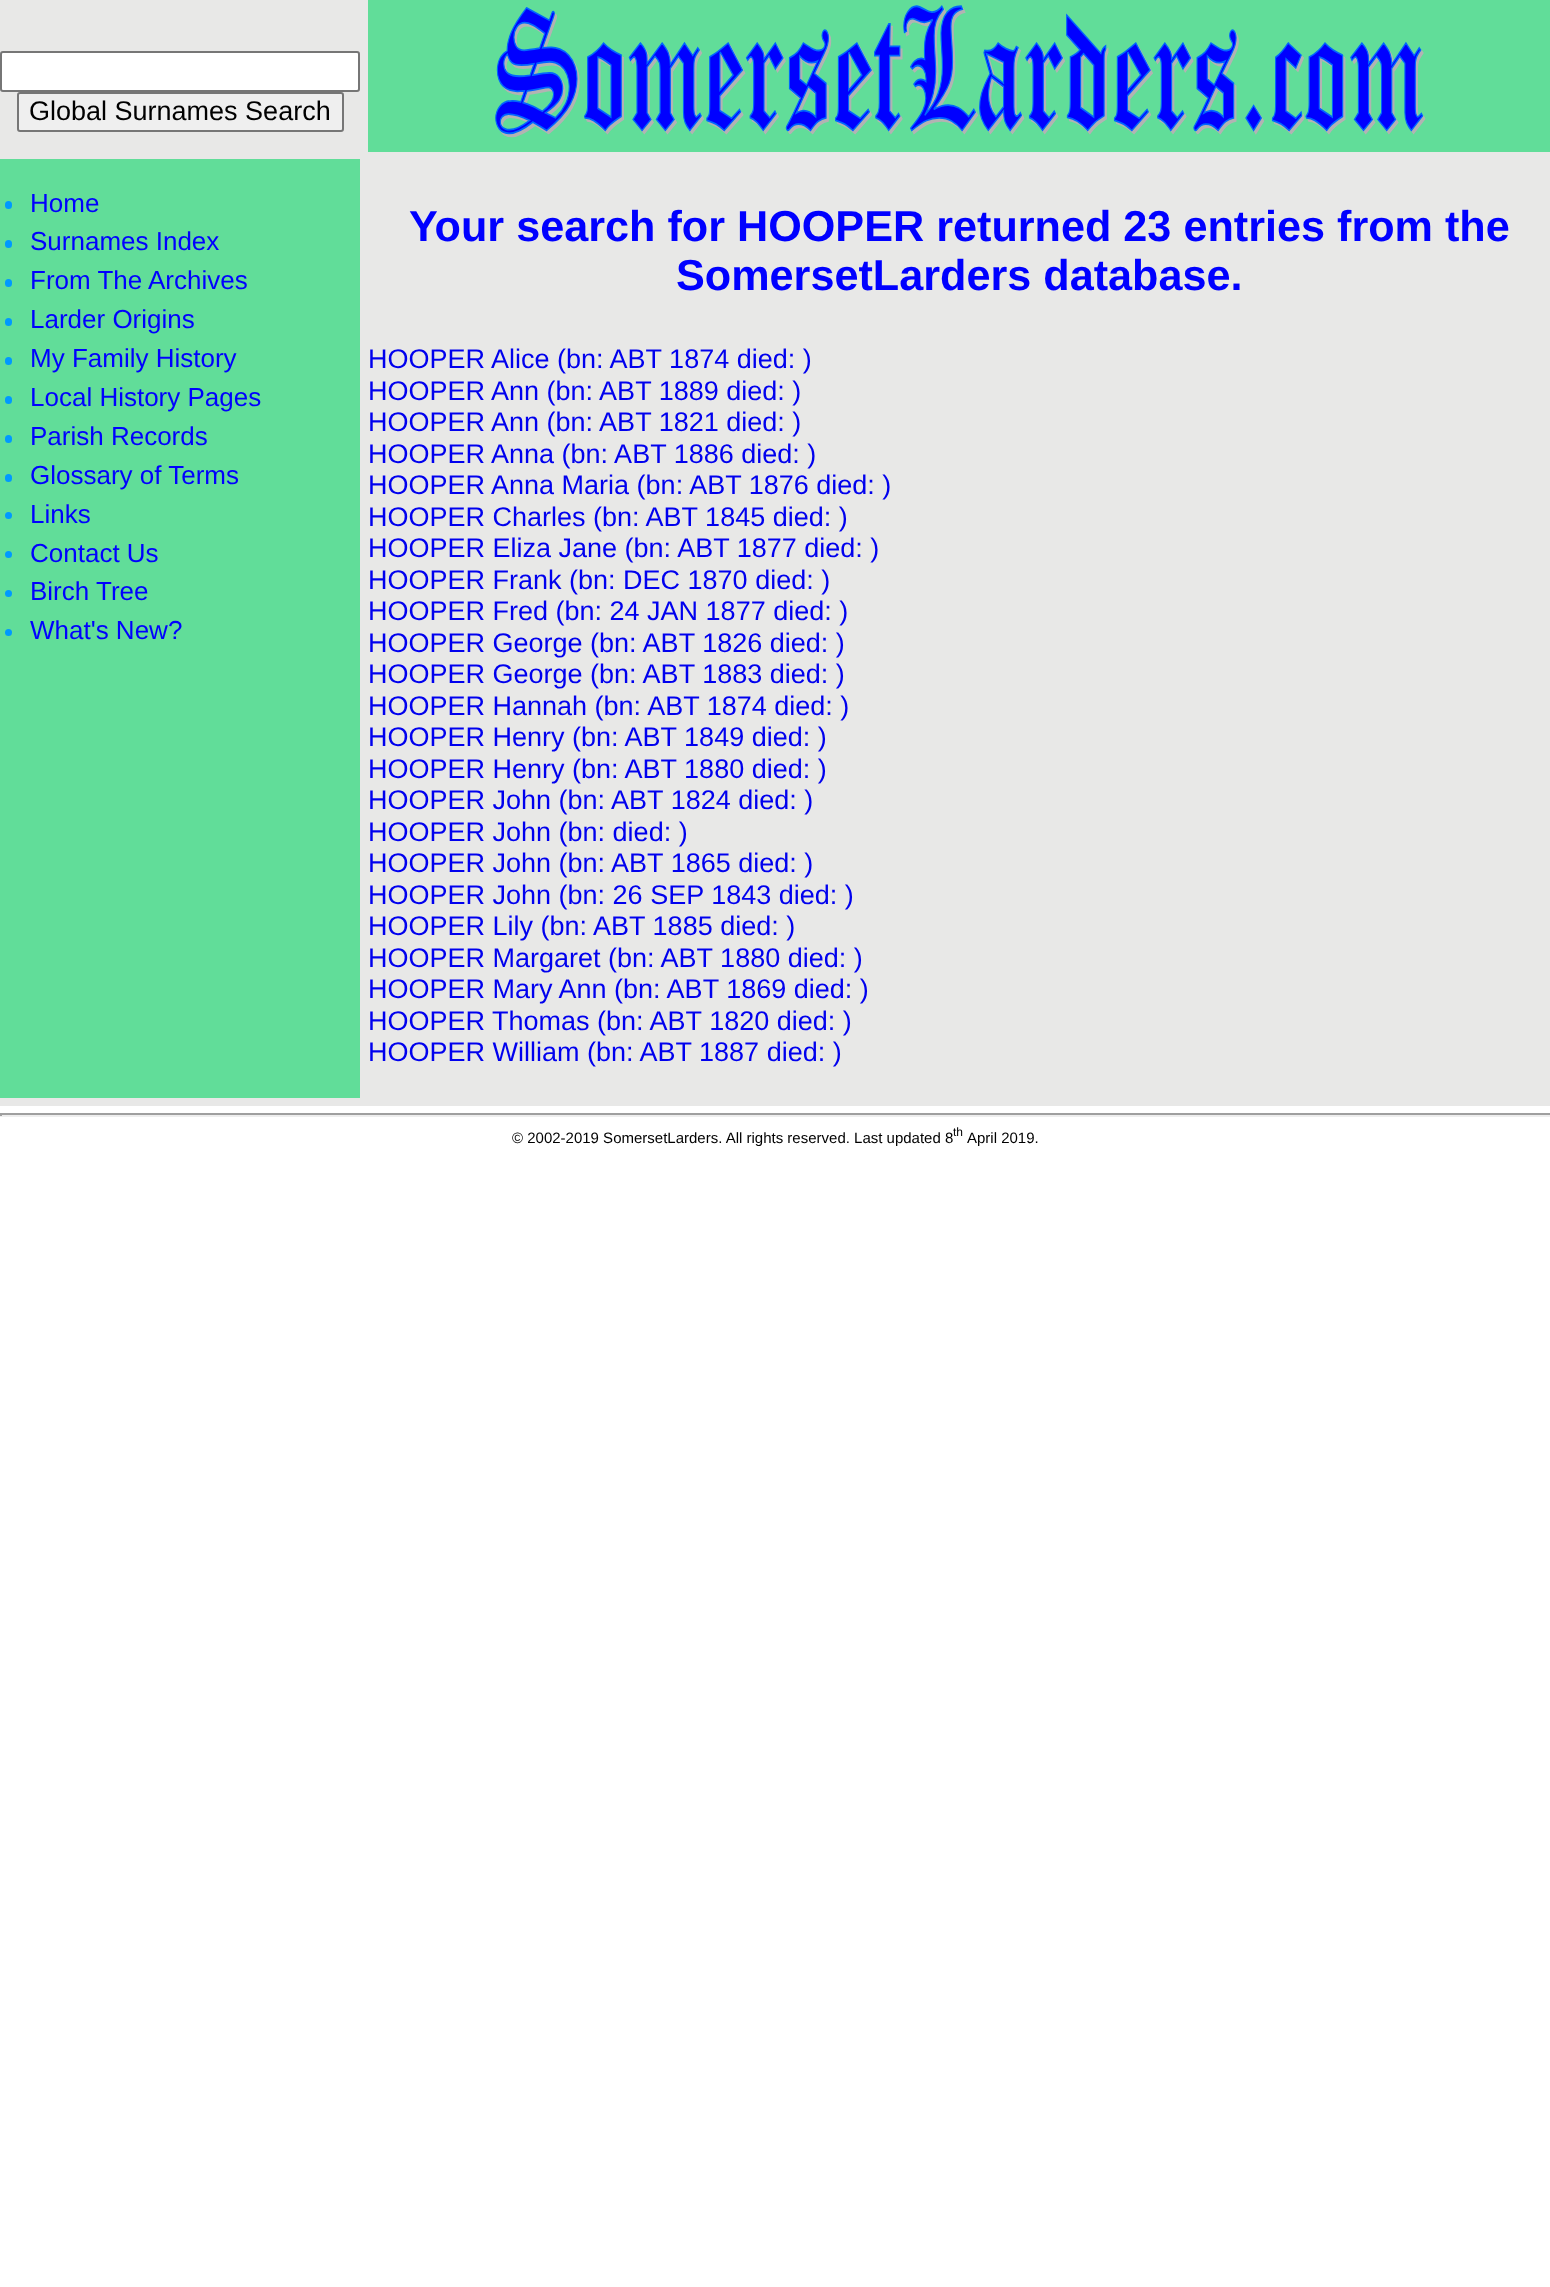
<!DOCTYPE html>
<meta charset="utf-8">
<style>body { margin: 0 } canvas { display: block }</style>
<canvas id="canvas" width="1550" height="2287"></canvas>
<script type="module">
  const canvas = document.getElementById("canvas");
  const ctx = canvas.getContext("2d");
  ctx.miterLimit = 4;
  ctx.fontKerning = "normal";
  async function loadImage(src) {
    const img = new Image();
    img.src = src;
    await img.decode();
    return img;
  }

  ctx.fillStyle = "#ffffff";
  ctx.fillRect(0, 0, 1550, 2287);
  ctx.fillStyle = "#e8e8e7";
  ctx.fillRect(0, 0, 1550, 1106);
  ctx.fillStyle = "#ffffff";
  ctx.beginPath();
  ctx.roundRect(1, 52, 358, 39, 2);
  ctx.fill();
  ctx.strokeStyle = "#767676";
  ctx.lineWidth = 2;
  ctx.stroke();
  ctx.fillStyle = "#efefef";
  ctx.beginPath();
  ctx.roundRect(18, 93, 325, 38, 2);
  ctx.fill();
  ctx.stroke();
  ctx.font = "27px Liberation Sans";
  ctx.fillStyle = "#000000";
  ctx.fillText("Global Surnames Search", 29, 120);
  ctx.fillStyle = "#61dd99";
  ctx.fillRect(368, 0, 1182, 152);
  ctx.drawImage(await loadImage("img1.png"), 495, 5, 931, 133);
  ctx.fillRect(0, 159, 360, 939);
  ctx.fillStyle = "#0099ff";
  ctx.beginPath();
  ctx.roundRect(5, 201, 7, 8, 3.5);
  ctx.fill();
  ctx.font = "26px Liberation Sans";
  ctx.fillStyle = "#0000ff";
  ctx.fillText("Home", 30, 212);
  ctx.fillStyle = "#0099ff";
  ctx.beginPath();
  ctx.roundRect(5, 240, 7, 8, 3.5);
  ctx.fill();
  ctx.fillStyle = "#0000ff";
  ctx.fillText("Surnames Index", 30, 250);
  ctx.fillStyle = "#0099ff";
  ctx.beginPath();
  ctx.roundRect(5, 279, 7, 8, 3.5);
  ctx.fill();
  ctx.fillStyle = "#0000ff";
  ctx.fillText("From The Archives", 30, 289);
  ctx.fillStyle = "#0099ff";
  ctx.beginPath();
  ctx.roundRect(5, 318, 7, 8, 3.5);
  ctx.fill();
  ctx.fillStyle = "#0000ff";
  ctx.fillText("Larder Origins", 30, 328);
  ctx.fillStyle = "#0099ff";
  ctx.beginPath();
  ctx.roundRect(5, 357, 7, 8, 3.5);
  ctx.fill();
  ctx.fillStyle = "#0000ff";
  ctx.fillText("My Family History", 30, 367);
  ctx.fillStyle = "#0099ff";
  ctx.beginPath();
  ctx.roundRect(5, 396, 7, 8, 3.5);
  ctx.fill();
  ctx.fillStyle = "#0000ff";
  ctx.fillText("Local History Pages", 30, 406);
  ctx.fillStyle = "#0099ff";
  ctx.beginPath();
  ctx.roundRect(5, 435, 7, 8, 3.5);
  ctx.fill();
  ctx.fillStyle = "#0000ff";
  ctx.fillText("Parish Records", 30, 445);
  ctx.fillStyle = "#0099ff";
  ctx.beginPath();
  ctx.roundRect(5, 474, 7, 8, 3.5);
  ctx.fill();
  ctx.fillStyle = "#0000ff";
  ctx.fillText("Glossary of Terms", 30, 484);
  ctx.fillStyle = "#0099ff";
  ctx.beginPath();
  ctx.arc(8.5, 515.5, 3.5, 0, Math.PI * 2);
  ctx.fill();
  ctx.fillStyle = "#0000ff";
  ctx.fillText("Links", 30, 523);
  ctx.fillStyle = "#0099ff";
  ctx.beginPath();
  ctx.arc(8.5, 554.5, 3.5, 0, Math.PI * 2);
  ctx.fill();
  ctx.fillStyle = "#0000ff";
  ctx.fillText("Contact Us", 30, 562);
  ctx.fillStyle = "#0099ff";
  ctx.beginPath();
  ctx.arc(8.5, 593.5, 3.5, 0, Math.PI * 2);
  ctx.fill();
  ctx.fillStyle = "#0000ff";
  ctx.fillText("Birch Tree", 30, 600);
  ctx.fillStyle = "#0099ff";
  ctx.beginPath();
  ctx.arc(8.5, 632.5, 3.5, 0, Math.PI * 2);
  ctx.fill();
  ctx.fillStyle = "#0000ff";
  ctx.fillText("What's New?", 30, 639);
  ctx.font = "bold 43.2px Liberation Sans";
  ctx.fillText("Your search for HOOPER returned 23 entries from the", 409, 241);
  ctx.fillText("SomersetLarders database.", 676, 290);
  ctx.font = "27px Liberation Sans";
  ctx.fillStyle = "#0000ee";
  ctx.fillText("HOOPER Alice (bn: ABT 1874 died: )", 368, 368);
  ctx.fillText("HOOPER Ann (bn: ABT 1889 died: )", 368, 400);
  ctx.fillText("HOOPER Ann (bn: ABT 1821 died: )", 368, 431);
  ctx.fillText("HOOPER Anna (bn: ABT 1886 died: )", 368, 463);
  ctx.fillText("HOOPER Anna Maria (bn: ABT 1876 died: )", 368, 494);
  ctx.fillText("HOOPER Charles (bn: ABT 1845 died: )", 368, 526);
  ctx.fillText("HOOPER Eliza Jane (bn: ABT 1877 died: )", 368, 557);
  ctx.fillText("HOOPER Frank (bn: DEC 1870 died: )", 368, 589);
  ctx.fillText("HOOPER Fred (bn: 24 JAN 1877 died: )", 368, 620);
  ctx.fillText("HOOPER George (bn: ABT 1826 died: )", 368, 652);
  ctx.fillText("HOOPER George (bn: ABT 1883 died: )", 368, 683);
  ctx.fillText("HOOPER Hannah (bn: ABT 1874 died: )", 368, 715);
  ctx.fillText("HOOPER Henry (bn: ABT 1849 died: )", 368, 746);
  ctx.fillText("HOOPER Henry (bn: ABT 1880 died: )", 368, 778);
  ctx.fillText("HOOPER John (bn: ABT 1824 died: )", 368, 809);
  ctx.fillText("HOOPER John (bn: died: )", 368, 841);
  ctx.fillText("HOOPER John (bn: ABT 1865 died: )", 368, 872);
  ctx.fillText("HOOPER John (bn: 26 SEP 1843 died: )", 368, 904);
  ctx.fillText("HOOPER Lily (bn: ABT 1885 died: )", 368, 935);
  ctx.fillText("HOOPER Margaret (bn: ABT 1880 died: )", 368, 967);
  ctx.fillText("HOOPER Mary Ann (bn: ABT 1869 died: )", 368, 998);
  ctx.fillText("HOOPER Thomas (bn: ABT 1820 died: )", 368, 1030);
  ctx.fillText("HOOPER William (bn: ABT 1887 died: )", 368, 1061);
  ctx.fillStyle = "#9f9f9f";
  ctx.fillRect(0, 1113, 1550, 2);
  ctx.fillStyle = "#eeeeee";
  ctx.fillRect(0, 1115, 1550, 2);
  ctx.fillStyle = "#9f9f9f";
  ctx.fillRect(0, 1113, 2, 3);
  ctx.font = "15px Liberation Sans";
  ctx.fillStyle = "#000000";
  ctx.fillText("© 2002-2019 SomersetLarders. All rights reserved. Last updated 8", 512, 1143);
  ctx.font = "12px Liberation Sans";
  ctx.fillText("th", 953, 1136);
  ctx.font = "15px Liberation Sans";
  ctx.fillText("April 2019.", 967, 1143);
</script>
